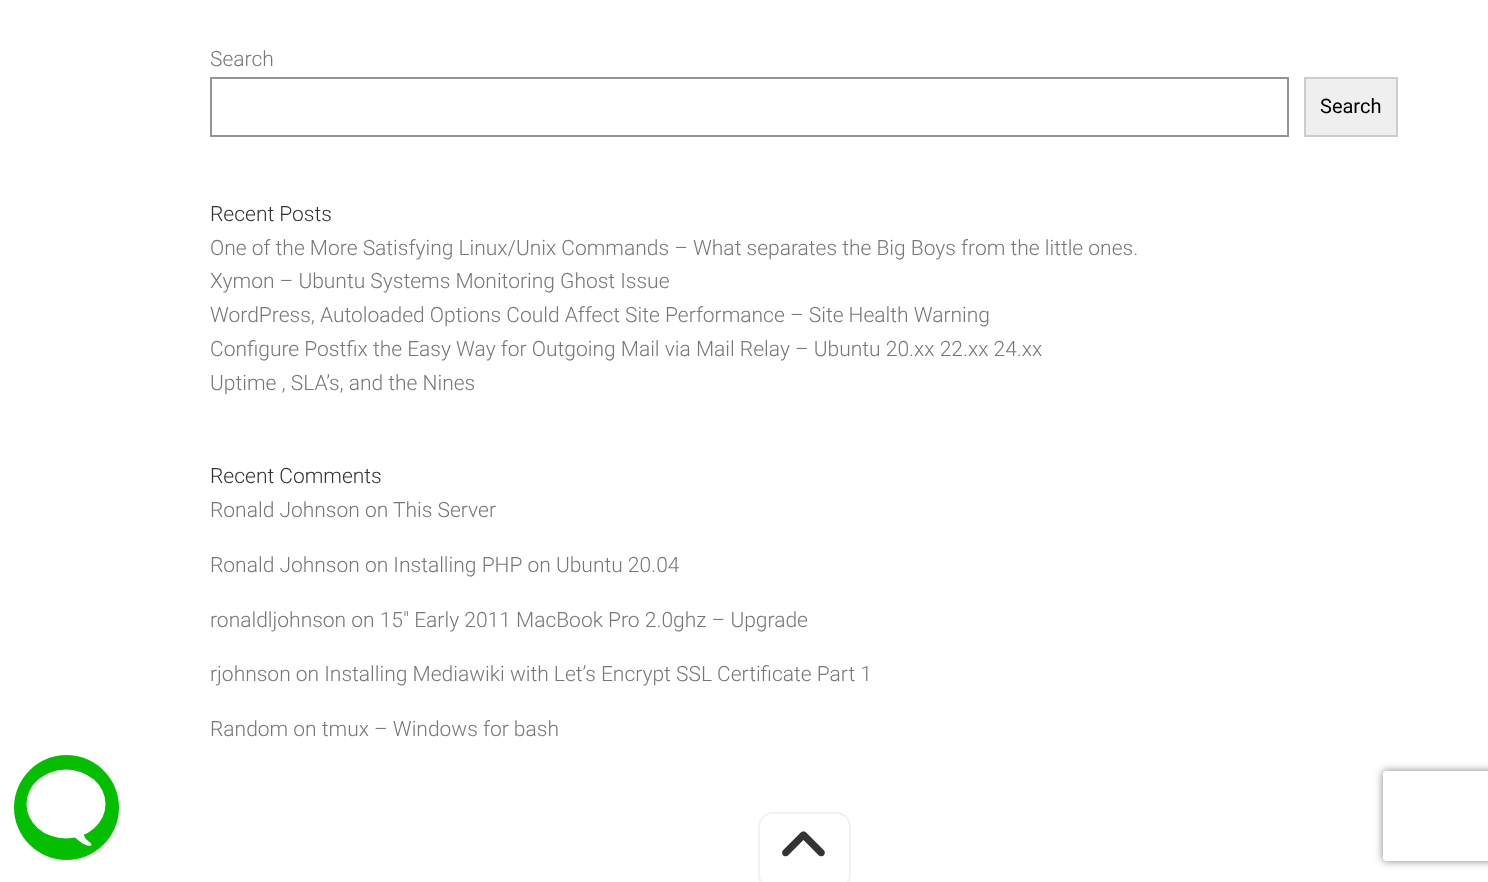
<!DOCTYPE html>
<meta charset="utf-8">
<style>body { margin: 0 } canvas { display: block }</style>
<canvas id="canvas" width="1488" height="882"></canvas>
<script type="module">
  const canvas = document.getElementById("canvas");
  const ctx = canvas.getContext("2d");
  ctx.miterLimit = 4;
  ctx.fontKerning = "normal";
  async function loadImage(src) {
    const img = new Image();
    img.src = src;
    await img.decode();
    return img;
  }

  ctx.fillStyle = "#ffffff";
  ctx.fillRect(0, 0, 1488, 882);
  ctx.font = "300 21px Roboto";
  ctx.fillStyle = "#777777";
  ctx.fillText("Search", 210, 66);
  ctx.strokeStyle = "#949494";
  ctx.lineWidth = 2;
  ctx.strokeRect(211, 78, 1077, 58);
  ctx.fillStyle = "#efefef";
  ctx.beginPath();
  ctx.rect(1305, 78, 92, 58);
  ctx.fill();
  ctx.strokeStyle = "#cccccc";
  ctx.stroke();
  ctx.font = "20px Roboto";
  ctx.fillStyle = "#000000";
  ctx.fillText("Search", 1320, 113);
  ctx.font = "300 21px Roboto";
  ctx.fillStyle = "#333333";
  ctx.fillText("Recent Posts", 210, 221);
  ctx.fillStyle = "#777777";
  ctx.fillText("One of the More Satisfying Linux/Unix Commands – What separates the Big Boys from the little ones.", 210, 255);
  ctx.fillText("Xymon – Ubuntu Systems Monitoring Ghost Issue", 210, 288);
  ctx.fillText("WordPress, Autoloaded Options Could Affect Site Performance – Site Health Warning", 210, 322);
  ctx.fillText("Configure Postfix the Easy Way for Outgoing Mail via Mail Relay – Ubuntu 20.xx 22.xx 24.xx", 210, 356);
  ctx.fillText("Uptime , SLA’s, and the Nines", 210, 390);
  ctx.fillStyle = "#333333";
  ctx.fillText("Recent Comments", 210, 483);
  ctx.fillStyle = "#777777";
  ctx.fillText("Ronald Johnson on", 210, 517);
  ctx.fillText("This Server", 393, 517);
  ctx.fillText("Ronald Johnson on Installing PHP on Ubuntu 20.04", 210, 572);
  ctx.fillText("ronaldljohnson on 15″ Early 2011 MacBook Pro 2.0ghz – Upgrade", 210, 627);
  ctx.fillText("rjohnson on Installing Mediawiki with Let’s Encrypt SSL Certificate Part 1", 210, 681);
  ctx.fillText("Random on tmux – Windows for bash", 210, 736);
  ctx.beginPath();
  ctx.roundRect(759, 813, 91, 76, 14);
  ctx.strokeStyle = "#f1f1f1";
  ctx.stroke();
  ctx.drawImage(await loadImage("img1.png"), 782, 831, 43, 26);
  ctx.fillStyle = "#03bf00";
  ctx.beginPath();
  ctx.arc(66.5, 807.5, 52.5, 0, Math.PI * 2);
  ctx.fill();
  ctx.fillStyle = "#ffffff";
  ctx.beginPath();
  ctx.ellipse(66, 804, 39.5, 34.5, 0, 0, Math.PI * 2);
  ctx.fill();
  ctx.beginPath();
  ctx.moveTo(83, 832);
  ctx.bezierCurveTo(84.5, 835, 84, 837.5, 87, 840);
  ctx.bezierCurveTo(87.5, 840.5, 93.5, 844.5, 91, 845.5);
  ctx.bezierCurveTo(85.5, 847, 77.5, 840, 74, 836.5);
  ctx.bezierCurveTo(73, 836, 72.5, 835, 72.5, 834);
  ctx.bezierCurveTo(72, 830, 80.5, 826, 83, 832);
  ctx.closePath();
  ctx.fill("evenodd");
  ctx.save();
  ctx.beginPath();
  ctx.moveTo(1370, 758);
  ctx.lineTo(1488, 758);
  ctx.lineTo(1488, 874);
  ctx.lineTo(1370, 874);
  ctx.closePath();
  ctx.moveTo(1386, 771);
  ctx.lineTo(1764, 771);
  ctx.bezierCurveTo(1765.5, 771, 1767, 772.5, 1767, 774);
  ctx.lineTo(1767, 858);
  ctx.bezierCurveTo(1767, 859.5, 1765.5, 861, 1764, 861);
  ctx.lineTo(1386, 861);
  ctx.bezierCurveTo(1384.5, 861, 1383, 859.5, 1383, 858);
  ctx.lineTo(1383, 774);
  ctx.bezierCurveTo(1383, 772.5, 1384.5, 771, 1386, 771);
  ctx.closePath();
  ctx.clip("evenodd");
  ctx.fillStyle = "#808080";
  ctx.filter = "blur(4px)";
  ctx.beginPath();
  ctx.roundRect(1383, 771, 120, 90, 3);
  ctx.fill();
  ctx.filter = "none";
  ctx.restore();
</script>
